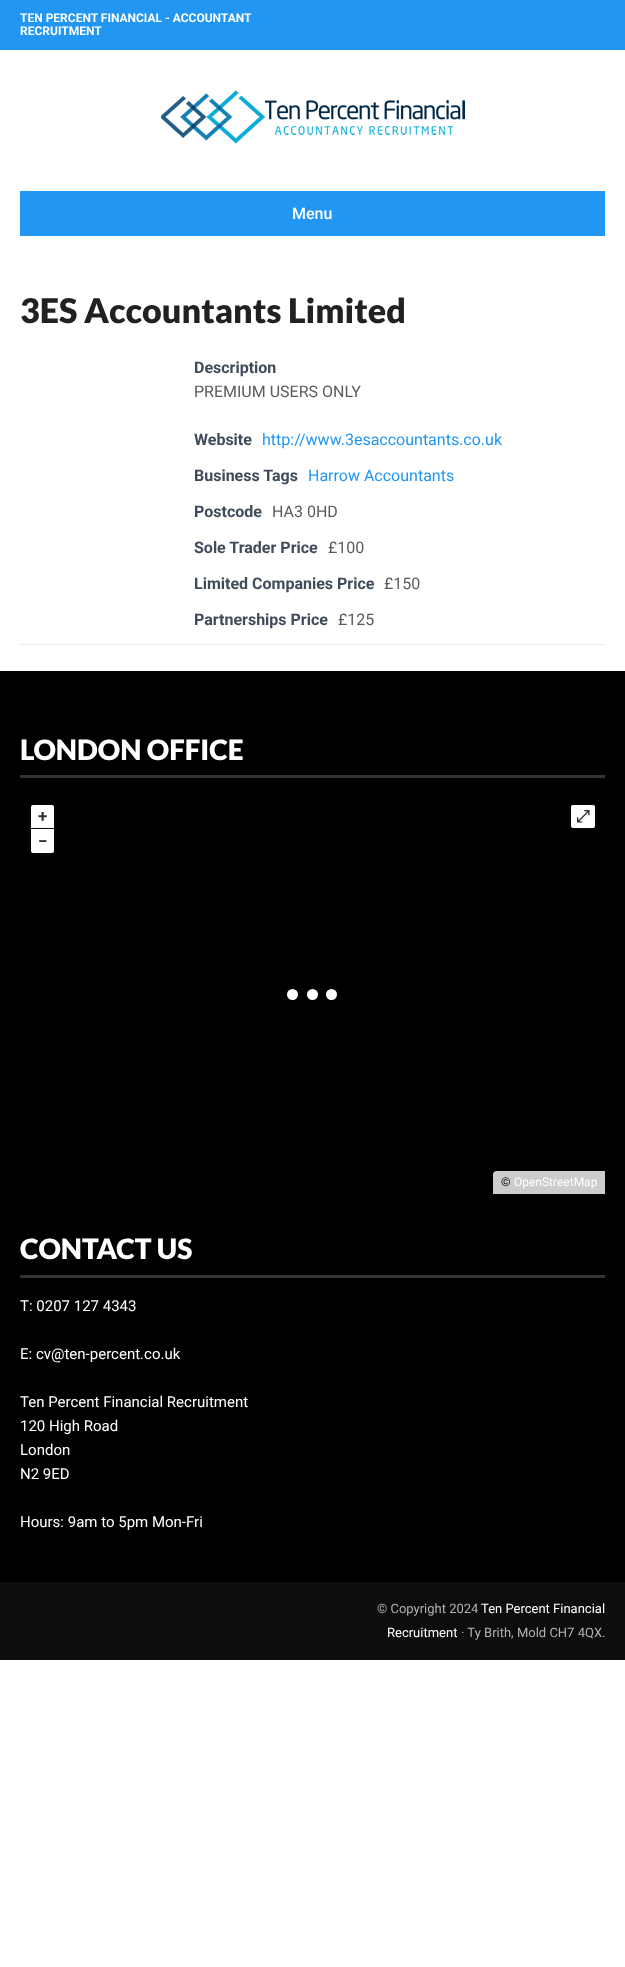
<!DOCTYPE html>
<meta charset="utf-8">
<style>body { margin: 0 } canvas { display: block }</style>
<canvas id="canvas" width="625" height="1967"></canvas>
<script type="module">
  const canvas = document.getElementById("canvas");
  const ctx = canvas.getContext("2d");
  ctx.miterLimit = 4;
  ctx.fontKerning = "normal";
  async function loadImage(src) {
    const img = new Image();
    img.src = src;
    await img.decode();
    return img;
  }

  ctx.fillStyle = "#ffffff";
  ctx.fillRect(0, 0, 625, 1967);
  ctx.fillStyle = "#2196f3";
  ctx.fillRect(0, 0, 625, 50);
  ctx.font = "bold 12px Roboto";
  ctx.fillStyle = "#ffffff";
  ctx.fillText("TEN PERCENT FINANCIAL - ACCOUNTANT", 20, 22);
  ctx.fillText("RECRUITMENT", 20, 35);
  ctx.drawImage(await loadImage("img1.png"), 161, 90, 304, 54);
  ctx.fillStyle = "#2196f3";
  ctx.fillRect(20, 191, 585, 45);
  ctx.font = "500 16px Roboto";
  ctx.fillStyle = "#ffffff";
  ctx.fillText("Menu", 292, 219);
  ctx.fillStyle = "#ebebeb";
  ctx.fillRect(20, 644, 585, 1);
  ctx.font = "900 34px Lato";
  ctx.fillStyle = "#212121";
  ctx.fillText("3ES Accountants Limited", 20, 323);
  ctx.font = "bold 16px Roboto";
  ctx.fillStyle = "#3f4b5b";
  ctx.fillText("Description", 194, 373);
  ctx.font = "16px Roboto";
  ctx.fillStyle = "#5a5b5c";
  ctx.fillText("PREMIUM USERS ONLY", 194, 397);
  ctx.font = "bold 16px Roboto";
  ctx.fillStyle = "#3f4b5b";
  ctx.fillText("Website", 194, 445);
  ctx.font = "16px Roboto";
  ctx.fillStyle = "#2196f3";
  ctx.fillText("http://www.3esaccountants.co.uk", 262, 445);
  ctx.font = "bold 16px Roboto";
  ctx.fillStyle = "#3f4b5b";
  ctx.fillText("Business Tags", 194, 481);
  ctx.font = "16px Roboto";
  ctx.fillStyle = "#2196f3";
  ctx.fillText("Harrow Accountants", 308, 481);
  ctx.font = "bold 16px Roboto";
  ctx.fillStyle = "#3f4b5b";
  ctx.fillText("Postcode", 194, 517);
  ctx.font = "16px Roboto";
  ctx.fillStyle = "#5a5b5c";
  ctx.fillText("HA3 0HD", 272, 517);
  ctx.font = "bold 16px Roboto";
  ctx.fillStyle = "#3f4b5b";
  ctx.fillText("Sole Trader Price", 194, 553);
  ctx.font = "16px Roboto";
  ctx.fillStyle = "#5a5b5c";
  ctx.fillText("£100", 328, 553);
  ctx.font = "bold 16px Roboto";
  ctx.fillStyle = "#3f4b5b";
  ctx.fillText("Limited Companies Price", 194, 589);
  ctx.font = "16px Roboto";
  ctx.fillStyle = "#5a5b5c";
  ctx.fillText("£150", 384, 589);
  ctx.font = "bold 16px Roboto";
  ctx.fillStyle = "#3f4b5b";
  ctx.fillText("Partnerships Price", 194, 625);
  ctx.font = "16px Roboto";
  ctx.fillStyle = "#5a5b5c";
  ctx.fillText("£125", 338, 625);
  ctx.fillStyle = "#000000";
  ctx.fillRect(0, 671, 625, 911);
  ctx.fillStyle = "#333333";
  ctx.fillRect(20, 775, 585, 3);
  ctx.font = "900 28px Lato";
  ctx.fillStyle = "#ffffff";
  ctx.fillText("LONDON OFFICE", 20, 760);
  ctx.fillStyle = "rgba(66, 66, 66, 0.16)";
  ctx.filter = "blur(1.5px)";
  ctx.beginPath();
  ctx.roundRect(30, 805, 25, 25, 3);
  ctx.fill();
  ctx.filter = "none";
  ctx.fillStyle = "#ffffff";
  ctx.beginPath();
  ctx.roundRect(31, 805, 23, 23, [2, 2, 0, 0]);
  ctx.fill();
  ctx.font = "bold 17px Roboto";
  ctx.fillStyle = "#333333";
  ctx.fillText("+", 38, 822);
  ctx.fillStyle = "rgba(66, 66, 66, 0.16)";
  ctx.filter = "blur(1.5px)";
  ctx.beginPath();
  ctx.roundRect(30, 829, 25, 26, 3);
  ctx.fill();
  ctx.filter = "none";
  ctx.fillStyle = "#ffffff";
  ctx.beginPath();
  ctx.roundRect(31, 829, 23, 24, [0, 0, 2, 2]);
  ctx.fill();
  ctx.fillStyle = "#333333";
  ctx.fillText("−", 38, 847);
  ctx.fillStyle = "rgba(66, 66, 66, 0.16)";
  ctx.filter = "blur(1.5px)";
  ctx.beginPath();
  ctx.roundRect(570, 805, 26, 25, 3);
  ctx.fill();
  ctx.filter = "none";
  ctx.fillStyle = "#ffffff";
  ctx.beginPath();
  ctx.roundRect(571, 805, 24, 23, 2);
  ctx.fill();
  ctx.font = "bold 17px FreeSerif";
  ctx.fillStyle = "#333333";
  ctx.fillText("⤢", 576, 822);
  ctx.fillStyle = "#cccccc";
  ctx.beginPath();
  ctx.roundRect(493, 1171, 112, 23, [4, 0, 0, 0]);
  ctx.fill();
  ctx.font = "12px Roboto";
  ctx.fillStyle = "#000000";
  ctx.fillText("©", 501, 1186);
  ctx.fillStyle = "#ffffff";
  ctx.fillText("OpenStreetMap", 514, 1186);
  ctx.beginPath();
  ctx.arc(292.5, 994.5, 5.5, 0, Math.PI * 2);
  ctx.fill();
  ctx.beginPath();
  ctx.arc(312.5, 994.5, 5.5, 0, Math.PI * 2);
  ctx.fill();
  ctx.beginPath();
  ctx.arc(331.5, 994.5, 5.5, 0, Math.PI * 2);
  ctx.fill();
  ctx.fillStyle = "#333333";
  ctx.fillRect(20, 1275, 585, 3);
  ctx.font = "900 28px Lato";
  ctx.fillStyle = "#ffffff";
  ctx.fillText("CONTACT US", 20, 1259);
  ctx.font = "15px Roboto";
  ctx.fillText("T: 0207 127 4343", 20, 1311);
  ctx.fillText("E: cv@ten-percent.co.uk", 20, 1359);
  ctx.fillText("Ten Percent Financial Recruitment", 20, 1407);
  ctx.fillText("120 High Road", 20, 1431);
  ctx.fillText("London", 20, 1455);
  ctx.fillText("N2 9ED", 20, 1479);
  ctx.fillText("Hours: 9am to 5pm Mon-Fri", 20, 1527);
  ctx.fillStyle = "#0d0d0d";
  ctx.fillRect(0, 1582, 625, 78);
  ctx.font = "13px Roboto";
  ctx.fillStyle = "#b3b3b3";
  ctx.fillText("© Copyright 2024", 377, 1613);
  ctx.fillStyle = "#ffffff";
  ctx.fillText("Ten Percent Financial", 481, 1613);
  ctx.fillText("Recruitment", 387, 1637);
  ctx.fillStyle = "#b3b3b3";
  ctx.fillText("· Ty Brith, Mold CH7 4QX.", 461, 1637);
</script>
